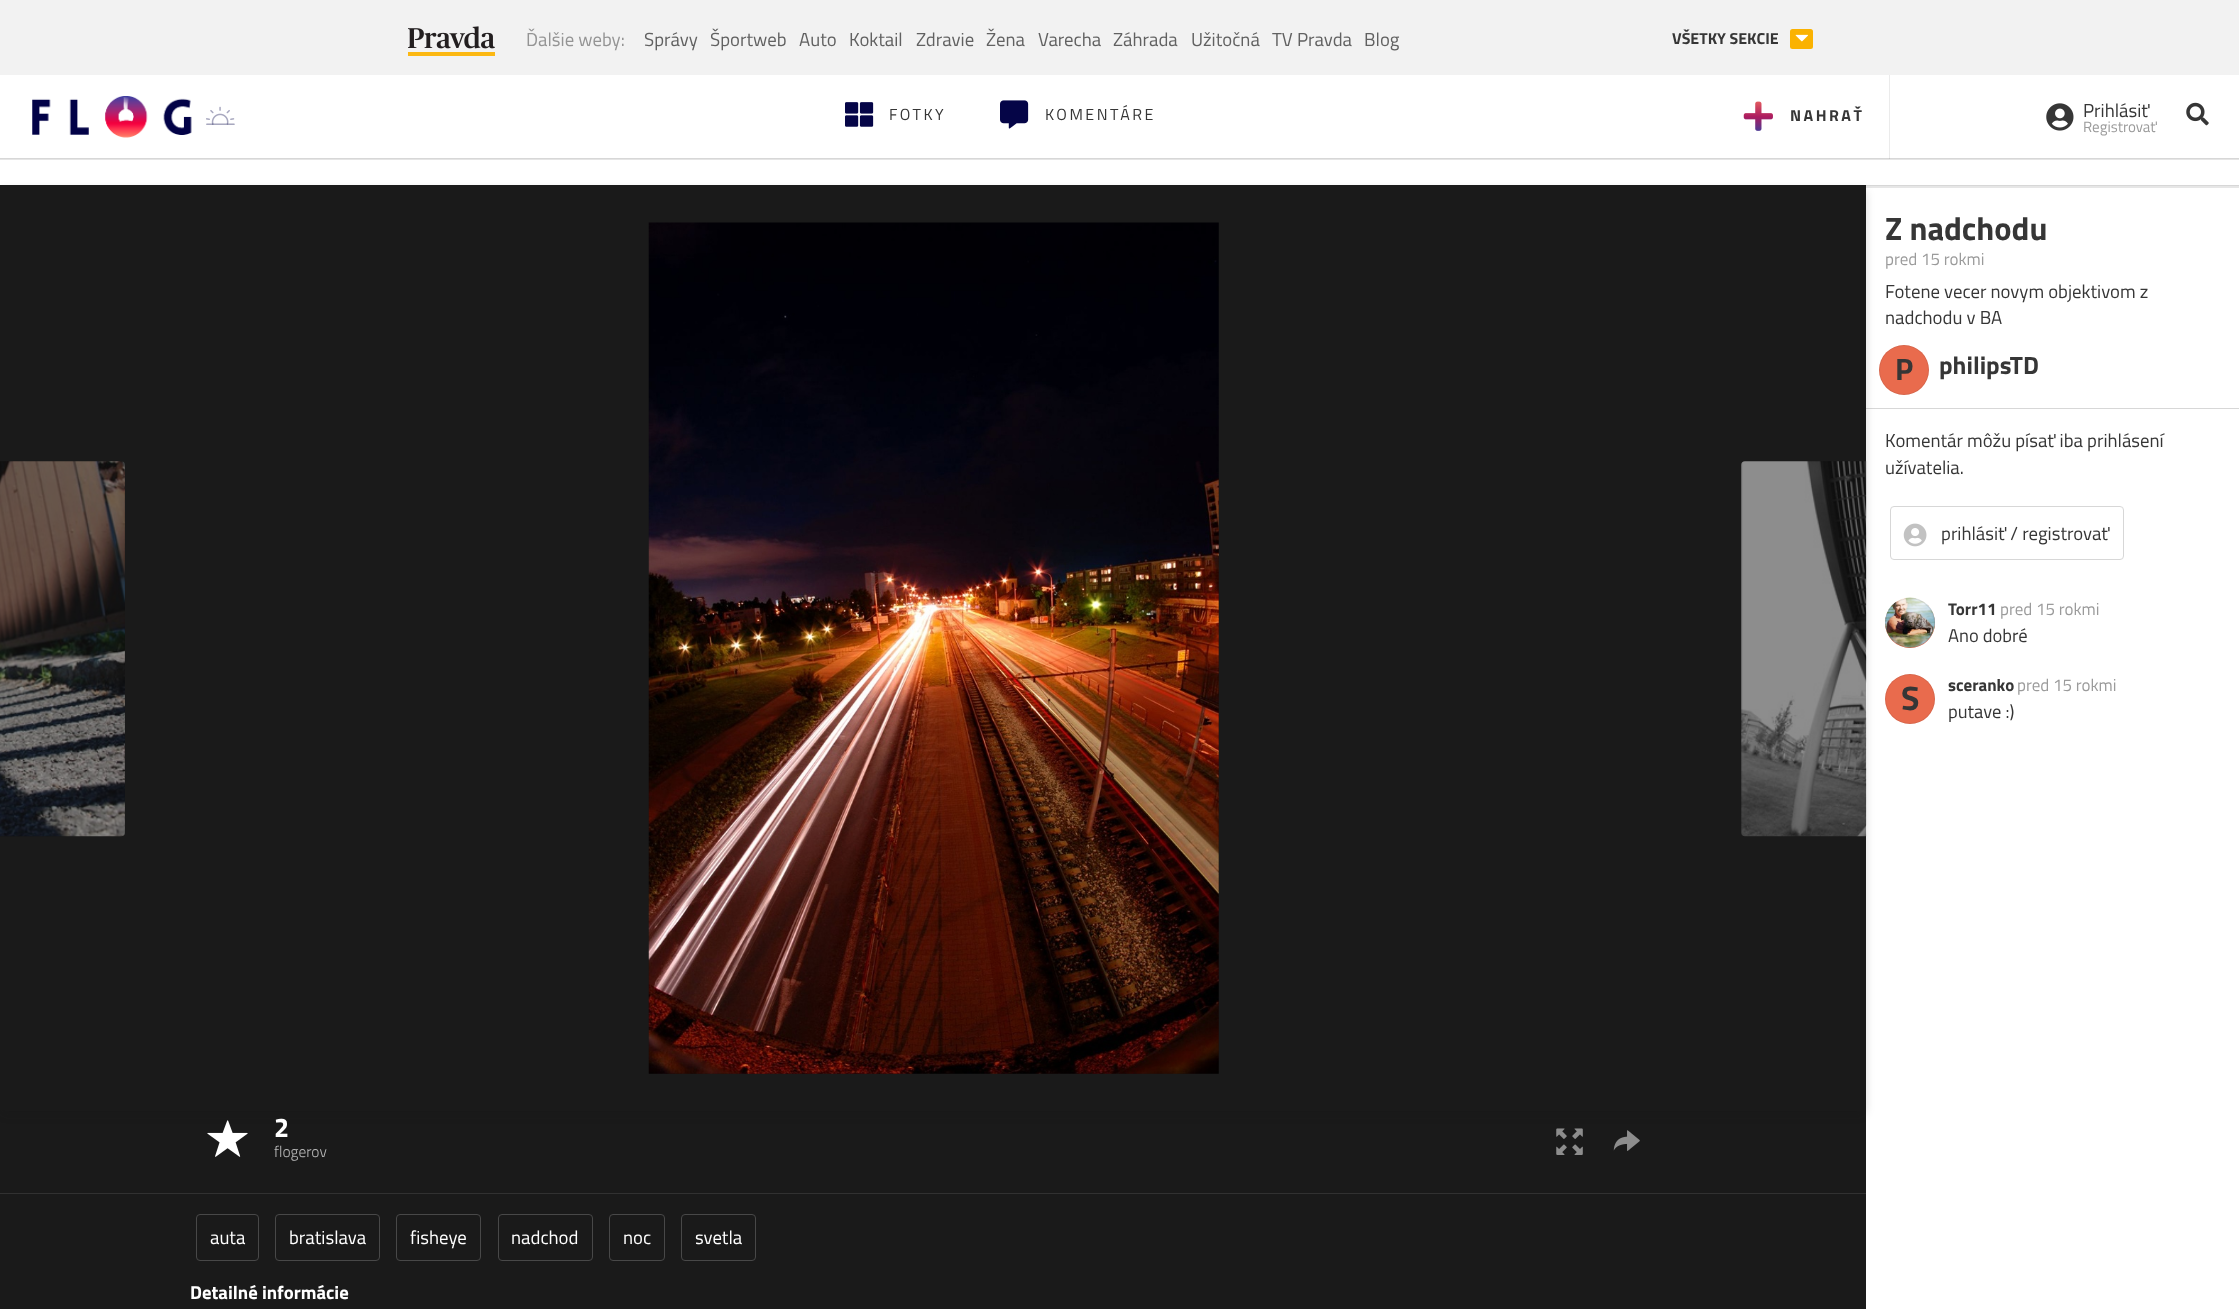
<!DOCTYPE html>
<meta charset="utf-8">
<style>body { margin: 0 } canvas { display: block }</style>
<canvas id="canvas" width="2239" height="1309"></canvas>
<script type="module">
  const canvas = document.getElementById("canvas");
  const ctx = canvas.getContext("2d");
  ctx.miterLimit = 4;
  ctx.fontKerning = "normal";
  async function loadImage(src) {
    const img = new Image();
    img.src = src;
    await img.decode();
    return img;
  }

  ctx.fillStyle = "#ffffff";
  ctx.fillRect(0, 0, 2239, 1309);
  ctx.fillStyle = "#f2f2f2";
  ctx.fillRect(0, 0, 2239, 75);
  ctx.drawImage(await loadImage("img1.png"), 408, 26, 87, 30);
  ctx.font = "18.75px Titillium Web";
  ctx.fillStyle = "#949494";
  ctx.fillText("Ďalšie weby:", 526, 46);
  ctx.fillStyle = "#616161";
  ctx.fillText("Správy", 644, 46);
  ctx.fillText("Športweb", 710, 46);
  ctx.fillText("Auto", 799, 46);
  ctx.fillText("Koktail", 849, 46);
  ctx.fillText("Zdravie", 916, 46);
  ctx.fillText("Žena", 986, 46);
  ctx.fillText("Varecha", 1038, 46);
  ctx.fillText("Záhrada", 1113, 46);
  ctx.fillText("Užitočná", 1191, 46);
  ctx.fillText("TV Pravda", 1272, 46);
  ctx.fillText("Blog", 1364, 46);
  ctx.font = "bold 16px Titillium Web";
  ctx.fillStyle = "#363636";
  ctx.fillText("VŠETKY SEKCIE", 1672, 44);
  ctx.fillStyle = "#fab201";
  ctx.beginPath();
  ctx.roundRect(1790, 29, 23, 20, 2.5);
  ctx.fill();
  ctx.drawImage(await loadImage("img2.png"), 1795, 34, 13, 8);
  ctx.drawImage(await loadImage("img3.png"), 32, 96, 160, 42);
  ctx.drawImage(await loadImage("img5.png"), 123, 101, 5, 9);
  ctx.drawImage(await loadImage("img4.png"), 123, 97, 6, 13);
  ctx.drawImage(await loadImage("img6.png"), 206, 106, 29, 19);
  ctx.drawImage(await loadImage("img7.png"), 845, 102, 29, 25);
  ctx.letterSpacing = "2.5px";
  ctx.font = "16px Titillium Web";
  ctx.fillStyle = "#363636";
  ctx.fillText("FOTKY", 889, 120);
  ctx.drawImage(await loadImage("img8.png"), 1000, 100, 29, 29);
  ctx.fillText("KOMENTÁRE", 1045, 120);
  ctx.fillStyle = "#ebebeb";
  ctx.fillRect(1889, 75, 1, 84);
  ctx.drawImage(await loadImage("img9.png"), 1743, 101, 30, 30);
  ctx.font = "bold 16px Titillium Web";
  ctx.fillStyle = "#363636";
  ctx.fillText("NAHRAŤ", 1790, 121);
  ctx.drawImage(await loadImage("img10.png"), 2046, 103, 28, 28);
  ctx.letterSpacing = "0px";
  ctx.font = "18.75px Titillium Web";
  ctx.fillText("Prihlásiť", 2083, 117);
  ctx.font = "15px Titillium Web";
  ctx.fillStyle = "#9b9b9b";
  ctx.fillText("Registrovať", 2083, 132);
  ctx.drawImage(await loadImage("img11.png"), 2186, 102, 23, 24);
  ctx.fillStyle = "rgba(0, 0, 0, 0.1)";
  ctx.filter = "blur(0.5px)";
  ctx.beginPath();
  ctx.rect(-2, 159, 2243, 1);
  ctx.fill();
  ctx.filter = "none";
  ctx.fillStyle = "rgba(54, 54, 54, 0.2)";
  ctx.fillRect(0, 158, 2239, 1);
  ctx.save();
  ctx.beginPath();
  ctx.rect(0, 186, 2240, 5);
  ctx.clip();
  ctx.fillStyle = "#e6e6e6";
  ctx.beginPath();
  ctx.moveTo(-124, 62);
  ctx.lineTo(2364, 62);
  ctx.lineTo(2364, 315);
  ctx.lineTo(-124, 315);
  ctx.closePath();
  ctx.moveTo(1, 188);
  ctx.lineTo(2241, 188);
  ctx.lineTo(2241, 192);
  ctx.lineTo(1, 192);
  ctx.closePath();
  ctx.fill("evenodd");
  ctx.restore();
  ctx.fillStyle = "#d7d7d7";
  ctx.fillRect(1866, 185, 373, 1);
  ctx.font = "bold 32.5px Titillium Web";
  ctx.fillStyle = "#363636";
  ctx.fillText("Z nadchodu", 1885, 240);
  ctx.font = "17px Titillium Web";
  ctx.fillStyle = "#9b9b9b";
  ctx.fillText("pred 15 rokmi", 1885, 265);
  ctx.font = "18.75px Titillium Web";
  ctx.fillStyle = "#363636";
  ctx.fillText("Fotene vecer novym objektivom z", 1885, 298);
  ctx.fillText("nadchodu v BA", 1885, 324);
  ctx.fillStyle = "#e96b4d";
  ctx.beginPath();
  ctx.arc(1904, 370, 25, 0, Math.PI * 2);
  ctx.fill();
  ctx.beginPath();
  ctx.arc(1904, 370, 24.5, 0, Math.PI * 2);
  ctx.strokeStyle = "rgba(54, 54, 54, 0.1)";
  ctx.stroke();
  ctx.font = "bold 31px Titillium Web";
  ctx.fillStyle = "#363636";
  ctx.fillText("P", 1895, 380);
  ctx.font = "bold 25px Titillium Web";
  ctx.fillText("philipsTD", 1939, 374);
  ctx.fillStyle = "#1a1a1a";
  ctx.fillRect(0, 185, 1866, 1124);
  ctx.save();
  ctx.beginPath();
  ctx.moveTo(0, 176);
  ctx.lineTo(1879, 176);
  ctx.lineTo(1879, 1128);
  ctx.lineTo(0, 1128);
  ctx.closePath();
  ctx.moveTo(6, 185);
  ctx.lineTo(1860, 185);
  ctx.bezierCurveTo(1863.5, 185, 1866, 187.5, 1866, 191);
  ctx.lineTo(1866, 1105);
  ctx.bezierCurveTo(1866, 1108.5, 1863.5, 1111, 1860, 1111);
  ctx.lineTo(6, 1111);
  ctx.bezierCurveTo(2.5, 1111, 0, 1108.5, 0, 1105);
  ctx.lineTo(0, 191);
  ctx.bezierCurveTo(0, 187.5, 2.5, 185, 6, 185);
  ctx.closePath();
  ctx.clip("evenodd");
  ctx.fillStyle = "rgba(23, 23, 22, 0.15)";
  ctx.filter = "blur(4px)";
  ctx.beginPath();
  ctx.roundRect(0, 189, 1866, 926, 6);
  ctx.fill();
  ctx.filter = "none";
  ctx.restore();
  ctx.fillStyle = "rgba(54, 54, 54, 0.2)";
  ctx.fillRect(1866, 408, 373, 1);
  ctx.font = "18.75px Titillium Web";
  ctx.fillStyle = "#363636";
  ctx.fillText("Komentár môžu písať iba prihlásení", 1885, 447);
  ctx.fillText("užívatelia.", 1885, 474);
  ctx.beginPath();
  ctx.roundRect(1890.5, 506.5, 233, 53, 3.5);
  ctx.strokeStyle = "#d7d7d7";
  ctx.stroke();
  ctx.drawImage(await loadImage("img12.png"), 1903, 523, 24, 24);
  ctx.fillText("prihlásiť / registrovať", 1941, 540);
  ctx.fillStyle = "#e96b4d";
  ctx.beginPath();
  ctx.arc(1910, 623, 25, 0, Math.PI * 2);
  ctx.fill();
  ctx.drawImage(await loadImage("img13.png"), 1885, 597, 50, 51);
  ctx.beginPath();
  ctx.arc(1910, 623, 24.5, 0, Math.PI * 2);
  ctx.strokeStyle = "rgba(54, 54, 54, 0.1)";
  ctx.stroke();
  ctx.font = "bold 17px Titillium Web";
  ctx.fillStyle = "#363636";
  ctx.fillText("Torr11", 1948, 615);
  ctx.font = "17px Titillium Web";
  ctx.fillStyle = "#9b9b9b";
  ctx.fillText("pred 15 rokmi", 2000, 615);
  ctx.font = "18.5px Titillium Web";
  ctx.fillStyle = "#363636";
  ctx.fillText("Ano dobré", 1948, 642);
  ctx.fillStyle = "#e96b4d";
  ctx.beginPath();
  ctx.arc(1910, 699, 25, 0, Math.PI * 2);
  ctx.fill();
  ctx.beginPath();
  ctx.arc(1910, 699, 24.5, 0, Math.PI * 2);
  ctx.stroke();
  ctx.font = "bold 34px Titillium Web";
  ctx.fillStyle = "#363636";
  ctx.fillText("S", 1901, 710);
  ctx.font = "bold 17px Titillium Web";
  ctx.fillText("sceranko", 1948, 691);
  ctx.font = "17px Titillium Web";
  ctx.fillStyle = "#9b9b9b";
  ctx.fillText("pred 15 rokmi", 2017, 691);
  ctx.font = "18.5px Titillium Web";
  ctx.fillStyle = "#363636";
  ctx.fillText("putave :)", 1948, 718);
  ctx.drawImage(await loadImage("img14.png"), 0, 461, 125, 376);
  ctx.drawImage(await loadImage("img15.png"), 648, 222, 571, 852);
  ctx.drawImage(await loadImage("img16.png"), 1741, 461, 126, 376);
  ctx.drawImage(await loadImage("img17.png"), 207, 1120, 41, 37);
  ctx.font = "bold 27px Titillium Web";
  ctx.fillStyle = "#ffffff";
  ctx.fillText("2", 274, 1137);
  ctx.font = "300 15.5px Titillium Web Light";
  ctx.fillStyle = "#bababa";
  ctx.fillText("flogerov", 274, 1157);
  ctx.drawImage(await loadImage("img18.png"), 1556, 1128, 27, 27);
  ctx.drawImage(await loadImage("img19.png"), 1613, 1130, 27, 21);
  ctx.fillStyle = "rgba(255, 255, 255, 0.1)";
  ctx.fillRect(0, 1193, 1866, 1);
  ctx.beginPath();
  ctx.roundRect(196.5, 1214.5, 62, 46, 3.5);
  ctx.strokeStyle = "#484848";
  ctx.stroke();
  ctx.font = "18.75px Titillium Web";
  ctx.fillStyle = "#ffffff";
  ctx.fillText("auta", 210, 1244);
  ctx.beginPath();
  ctx.roundRect(275.5, 1214.5, 104, 46, 3.5);
  ctx.stroke();
  ctx.fillText("bratislava", 289, 1244);
  ctx.beginPath();
  ctx.roundRect(396.5, 1214.5, 84, 46, 3.5);
  ctx.stroke();
  ctx.fillText("fisheye", 410, 1244);
  ctx.beginPath();
  ctx.roundRect(498.5, 1214.5, 94, 46, 3.5);
  ctx.stroke();
  ctx.fillText("nadchod", 511, 1244);
  ctx.beginPath();
  ctx.roundRect(609.5, 1214.5, 55, 46, 3.5);
  ctx.stroke();
  ctx.fillText("noc", 623, 1244);
  ctx.beginPath();
  ctx.roundRect(681.5, 1214.5, 74, 46, 3.5);
  ctx.stroke();
  ctx.fillText("svetla", 695, 1244);
  ctx.font = "bold 18.75px Titillium Web";
  ctx.fillText("Detailné informácie", 190, 1299);
</script>
